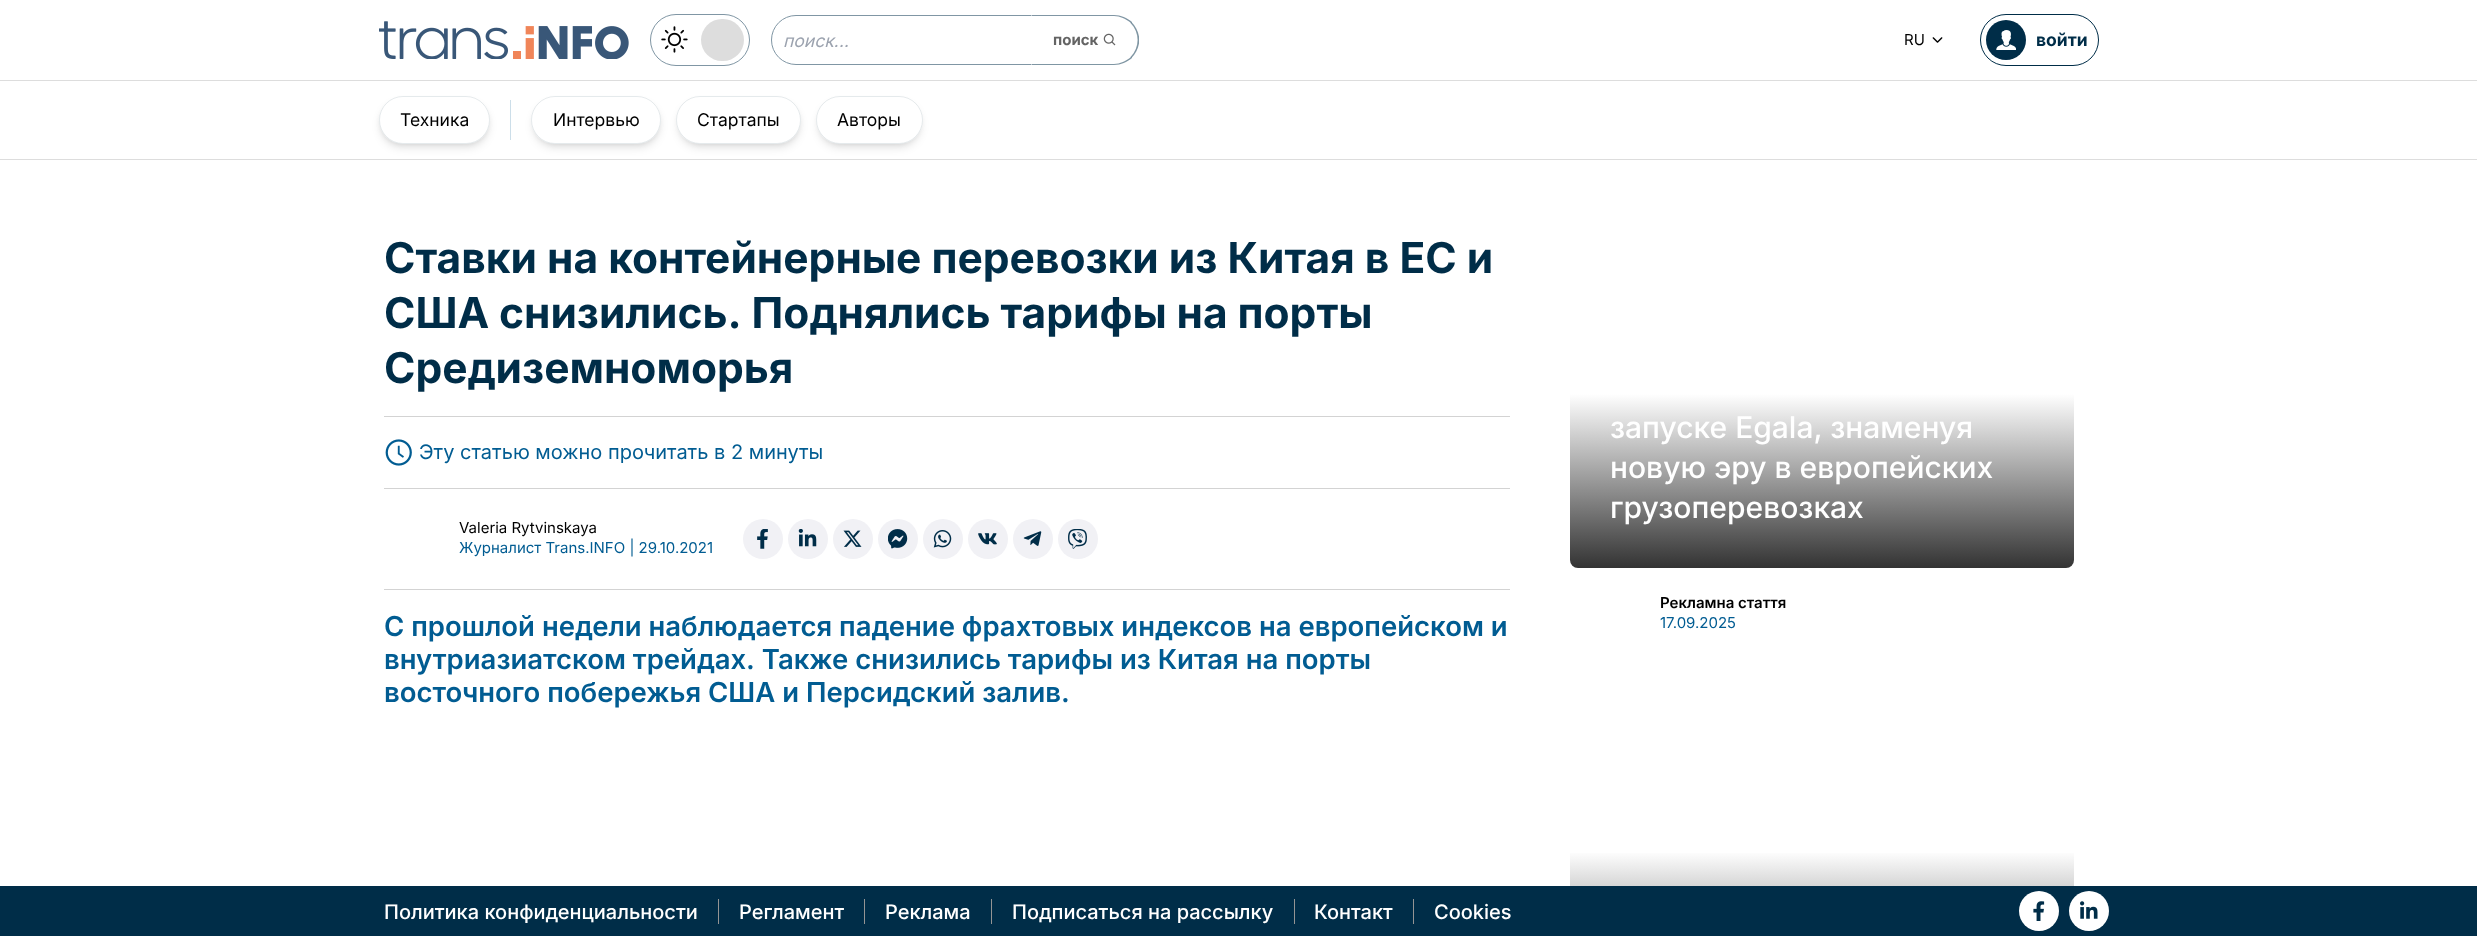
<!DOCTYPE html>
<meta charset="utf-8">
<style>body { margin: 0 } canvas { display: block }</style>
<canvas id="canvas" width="2477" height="936"></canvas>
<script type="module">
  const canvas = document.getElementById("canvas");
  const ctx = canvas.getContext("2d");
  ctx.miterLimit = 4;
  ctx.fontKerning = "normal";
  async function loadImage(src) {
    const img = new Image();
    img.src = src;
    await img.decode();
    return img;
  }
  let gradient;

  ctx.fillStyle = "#ffffff";
  ctx.fillRect(0, 0, 2477, 936);
  ctx.drawImage(await loadImage("img1.png"), 379, 21, 250, 38);
  ctx.beginPath();
  ctx.roundRect(650.5, 14.5, 99, 51, 25.5);
  ctx.strokeStyle = "#8096a4";
  ctx.stroke();
  ctx.drawImage(await loadImage("img2.png"), 661, 26, 27, 27);
  ctx.fillStyle = "#dddddd";
  ctx.beginPath();
  ctx.roundRect(701, 19, 43, 42, 21);
  ctx.fill();
  ctx.beginPath();
  ctx.roundRect(771.5, 15.5, 304, 49, 24.5);
  ctx.stroke();
  ctx.font = "italic 17.5px Inter";
  ctx.fillStyle = "#9ca3af";
  ctx.fillText("поиск...", 783, 47);
  ctx.fillStyle = "#ffffff";
  ctx.beginPath();
  ctx.roundRect(1031, 15, 108, 50, [0, 25, 25, 0]);
  ctx.fill();
  ctx.fillStyle = "#8096a4";
  ctx.beginPath();
  ctx.moveTo(1031, 15);
  ctx.lineTo(1032, 16);
  ctx.lineTo(1114, 16);
  ctx.bezierCurveTo(1120, 16, 1126, 19, 1131, 23);
  ctx.lineTo(1132, 22);
  ctx.bezierCurveTo(1127, 18, 1121, 15, 1114, 15);
  ctx.closePath();
  ctx.fill();
  ctx.fillStyle = "rgba(0, 45, 72, 0.5)";
  ctx.beginPath();
  ctx.moveTo(1139, 43.5);
  ctx.bezierCurveTo(1138, 49, 1135.5, 54, 1131.5, 58);
  ctx.lineTo(1130.5, 57);
  ctx.bezierCurveTo(1140, 47.5, 1140, 32.5, 1130.5, 23);
  ctx.lineTo(1131.5, 22);
  ctx.bezierCurveTo(1135.5, 26, 1138, 31, 1139, 36.5);
  ctx.closePath();
  ctx.fill();
  ctx.beginPath();
  ctx.moveTo(1031, 65);
  ctx.lineTo(1114, 65);
  ctx.bezierCurveTo(1121, 65, 1127, 62, 1132, 58);
  ctx.lineTo(1131, 57);
  ctx.bezierCurveTo(1126, 61, 1120, 64, 1114, 64);
  ctx.lineTo(1032, 64);
  ctx.closePath();
  ctx.fill();
  ctx.font = "bold 15px Inter";
  ctx.fillStyle = "#646464";
  ctx.fillText("поиск", 1053, 45);
  ctx.drawImage(await loadImage("img3.png"), 1103, 33, 13, 13);
  ctx.font = "15px Inter";
  ctx.fillStyle = "#000000";
  ctx.fillText("RU", 1904, 45);
  ctx.drawImage(await loadImage("img4.png"), 1932, 37, 11, 6);
  ctx.beginPath();
  ctx.roundRect(1980.5, 14.5, 118, 51, 25.5);
  ctx.strokeStyle = "#002d48";
  ctx.stroke();
  ctx.fillStyle = "#002d48";
  ctx.beginPath();
  ctx.arc(2006, 40, 20, 0, Math.PI * 2);
  ctx.fill();
  ctx.drawImage(await loadImage("img5.png"), 1996, 30, 20, 20);
  ctx.font = "bold 17.5px Inter";
  ctx.fillText("войти", 2036, 46);
  ctx.fillStyle = "#dddddd";
  ctx.fillRect(0, 80, 2477, 1);
  ctx.fillRect(0, 159, 2477, 1);
  ctx.fillStyle = "rgba(0, 0, 0, 0.1)";
  ctx.filter = "blur(2.5px)";
  ctx.beginPath();
  ctx.roundRect(381, 101, 107, 43, 21.5);
  ctx.fill();
  ctx.filter = "none";
  ctx.filter = "blur(4px)";
  ctx.beginPath();
  ctx.roundRect(380, 103, 109, 45, 22.5);
  ctx.fill();
  ctx.filter = "none";
  ctx.fillStyle = "#ffffff";
  ctx.beginPath();
  ctx.roundRect(379, 96, 111, 48, 24);
  ctx.fill();
  ctx.beginPath();
  ctx.roundRect(379.5, 96.5, 110, 47, 23.5);
  ctx.strokeStyle = "rgba(0, 45, 72, 0.1)";
  ctx.stroke();
  ctx.font = "17.5px Inter";
  ctx.fillStyle = "#000000";
  ctx.fillText("Техника", 400, 126);
  ctx.fillStyle = "#ccdee9";
  ctx.fillRect(510, 100, 1, 40);
  ctx.fillStyle = "rgba(0, 0, 0, 0.1)";
  ctx.filter = "blur(2.5px)";
  ctx.beginPath();
  ctx.roundRect(534, 101, 125, 43, 21.5);
  ctx.fill();
  ctx.filter = "none";
  ctx.filter = "blur(4px)";
  ctx.beginPath();
  ctx.roundRect(533, 103, 127, 45, 22.5);
  ctx.fill();
  ctx.filter = "none";
  ctx.fillStyle = "#ffffff";
  ctx.beginPath();
  ctx.roundRect(531, 96, 130, 48, 24);
  ctx.fill();
  ctx.beginPath();
  ctx.roundRect(531.5, 96.5, 129, 47, 23.5);
  ctx.stroke();
  ctx.fillStyle = "#000000";
  ctx.fillText("Интервью", 553, 126);
  ctx.fillStyle = "rgba(0, 0, 0, 0.1)";
  ctx.filter = "blur(2.5px)";
  ctx.beginPath();
  ctx.roundRect(679, 101, 120, 43, 21.5);
  ctx.fill();
  ctx.filter = "none";
  ctx.filter = "blur(4px)";
  ctx.beginPath();
  ctx.roundRect(678, 103, 122, 45, 22.5);
  ctx.fill();
  ctx.filter = "none";
  ctx.fillStyle = "#ffffff";
  ctx.beginPath();
  ctx.roundRect(676, 96, 125, 48, 24);
  ctx.fill();
  ctx.beginPath();
  ctx.roundRect(676.5, 96.5, 124, 47, 23.5);
  ctx.stroke();
  ctx.fillStyle = "#000000";
  ctx.fillText("Стартапы", 697, 126);
  ctx.fillStyle = "rgba(0, 0, 0, 0.1)";
  ctx.filter = "blur(2.5px)";
  ctx.beginPath();
  ctx.roundRect(819, 101, 101, 43, 21.5);
  ctx.fill();
  ctx.filter = "none";
  ctx.filter = "blur(4px)";
  ctx.beginPath();
  ctx.roundRect(818, 103, 103, 45, 22.5);
  ctx.fill();
  ctx.filter = "none";
  ctx.fillStyle = "#ffffff";
  ctx.beginPath();
  ctx.roundRect(816, 96, 107, 48, 24);
  ctx.fill();
  ctx.beginPath();
  ctx.roundRect(816.5, 96.5, 106, 47, 23.5);
  ctx.stroke();
  ctx.fillStyle = "#000000";
  ctx.fillText("Авторы", 837, 126);
  ctx.font = "bold 42.5px Inter";
  ctx.fillStyle = "#002d48";
  ctx.fillText("Ставки на контейнерные перевозки из Китая в ЕС и", 384, 273);
  ctx.wordSpacing = "-0.25px";
  ctx.fillText("США снизились. Поднялись тарифы на порты", 384, 328);
  ctx.wordSpacing = "0px";
  ctx.fillText("Средиземноморья", 384, 383);
  ctx.fillStyle = "#d3d3d3";
  ctx.fillRect(384, 416, 1126, 1);
  ctx.fillRect(384, 488, 1126, 1);
  ctx.drawImage(await loadImage("img6.png"), 385, 439, 27, 27);
  ctx.font = "20px Inter";
  ctx.fillStyle = "#015c92";
  ctx.fillText("Эту статью можно прочитать в 2 минуты", 419, 459);
  ctx.font = "15px Inter";
  ctx.fillStyle = "#000000";
  ctx.fillText("Valeria Rytvinskaya", 459, 533);
  ctx.fillStyle = "#015c92";
  ctx.fillText("Журналист Trans.INFO | 29.10.2021", 459, 553);
  ctx.fillStyle = "#f1f1f5";
  ctx.beginPath();
  ctx.arc(763, 539, 20, 0, Math.PI * 2);
  ctx.fill();
  ctx.drawImage(await loadImage("img7.png"), 757, 529, 11, 20);
  ctx.beginPath();
  ctx.arc(808, 539, 20, 0, Math.PI * 2);
  ctx.fill();
  ctx.drawImage(await loadImage("img8.png"), 798, 529, 19, 18);
  ctx.beginPath();
  ctx.arc(853, 539, 20, 0, Math.PI * 2);
  ctx.fill();
  ctx.drawImage(await loadImage("img9.png"), 843, 530, 19, 17);
  ctx.beginPath();
  ctx.arc(898, 539, 20, 0, Math.PI * 2);
  ctx.fill();
  ctx.drawImage(await loadImage("img10.png"), 888, 529, 20, 20);
  ctx.beginPath();
  ctx.arc(943, 539, 20, 0, Math.PI * 2);
  ctx.fill();
  ctx.drawImage(await loadImage("img11.png"), 933, 530, 19, 18);
  ctx.beginPath();
  ctx.arc(988, 539, 20, 0, Math.PI * 2);
  ctx.fill();
  ctx.drawImage(await loadImage("img12.png"), 978, 533, 19, 12);
  ctx.beginPath();
  ctx.arc(1033, 539, 20, 0, Math.PI * 2);
  ctx.fill();
  ctx.drawImage(await loadImage("img13.png"), 1023, 531, 19, 15);
  ctx.beginPath();
  ctx.arc(1078, 539, 20, 0, Math.PI * 2);
  ctx.fill();
  ctx.drawImage(await loadImage("img14.png"), 1068, 529, 19, 20);
  ctx.fillStyle = "#d3d3d3";
  ctx.fillRect(384, 589, 1126, 1);
  ctx.font = "600 27.5px Inter";
  ctx.fillStyle = "#015c92";
  ctx.fillText("С прошлой недели наблюдается падение фрахтовых индексов на европейском и", 384, 636);
  ctx.fillText("внутриазиатском трейдах. Также снизились тарифы из Китая на порты", 384, 669);
  ctx.fillText("восточного побережья США и Персидский залив.", 384, 702);
  gradient = ctx.createLinearGradient(1822, 568, 1822, 394);
  gradient.addColorStop(0, "#333333");
  gradient.addColorStop(1, "#ffffff");
  ctx.fillStyle = gradient;
  ctx.beginPath();
  ctx.roundRect(1570, 394, 504, 174, [0, 0, 8, 8]);
  ctx.fill();
  ctx.font = "500 30px Inter";
  ctx.fillStyle = "#ffffff";
  ctx.fillText("запуске Egala, знаменуя", 1610, 438);
  ctx.fillText("новую эру в европейских", 1610, 478);
  ctx.fillText("грузоперевозках", 1610, 518);
  ctx.font = "600 15px Inter";
  ctx.fillStyle = "#000000";
  ctx.fillText("Рекламна стаття", 1660, 608);
  ctx.font = "15px Inter";
  ctx.fillStyle = "#015c92";
  ctx.fillText("17.09.2025", 1660, 628);
  gradient = ctx.createLinearGradient(1822, 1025, 1822, 851);
  gradient.addColorStop(0, "#333333");
  gradient.addColorStop(1, "#ffffff");
  ctx.fillStyle = gradient;
  ctx.fillRect(1570, 853, 504, 33);
  ctx.fillStyle = "#002d48";
  ctx.fillRect(0, 886, 2477, 50);
  ctx.font = "500 20px Inter";
  ctx.fillStyle = "#ffffff";
  ctx.fillText("Политика конфиденциальности", 384, 919);
  ctx.fillStyle = "#949494";
  ctx.fillRect(718, 899, 1, 25);
  ctx.fillStyle = "#ffffff";
  ctx.fillText("Регламент", 739, 919);
  ctx.fillStyle = "#949494";
  ctx.fillRect(864, 899, 1, 25);
  ctx.fillStyle = "#ffffff";
  ctx.fillText("Реклама", 885, 919);
  ctx.fillStyle = "#949494";
  ctx.fillRect(991, 899, 1, 25);
  ctx.fillStyle = "#ffffff";
  ctx.fillText("Подписаться на рассылку", 1012, 919);
  ctx.fillStyle = "#949494";
  ctx.fillRect(1294, 899, 1, 25);
  ctx.fillStyle = "#ffffff";
  ctx.fillText("Контакт", 1314, 919);
  ctx.fillStyle = "#949494";
  ctx.fillRect(1413, 899, 1, 25);
  ctx.fillStyle = "#ffffff";
  ctx.fillText("Cookies", 1434, 919);
  ctx.beginPath();
  ctx.arc(2039, 911, 20, 0, Math.PI * 2);
  ctx.fill();
  ctx.drawImage(await loadImage("img15.png"), 2033, 901, 12, 20);
  ctx.beginPath();
  ctx.arc(2089, 911, 20, 0, Math.PI * 2);
  ctx.fill();
  ctx.drawImage(await loadImage("img16.png"), 2080, 901, 18, 18);
</script>
